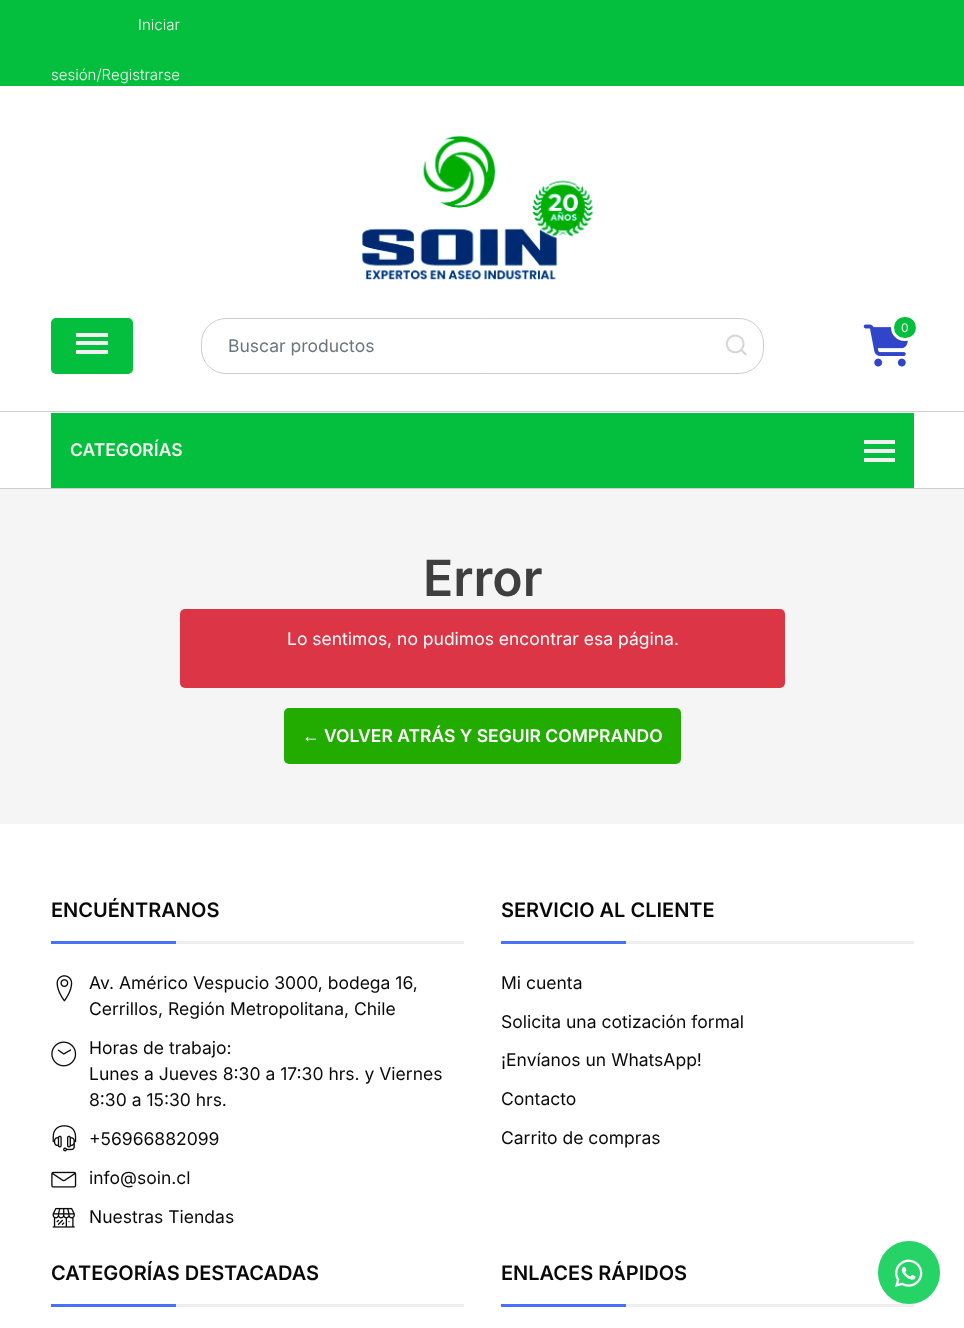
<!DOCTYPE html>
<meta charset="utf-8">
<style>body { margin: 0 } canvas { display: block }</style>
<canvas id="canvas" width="964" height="1328"></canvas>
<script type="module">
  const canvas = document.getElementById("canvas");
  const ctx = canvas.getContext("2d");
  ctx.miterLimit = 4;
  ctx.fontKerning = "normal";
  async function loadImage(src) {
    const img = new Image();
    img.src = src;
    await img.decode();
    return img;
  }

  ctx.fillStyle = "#ffffff";
  ctx.fillRect(0, 0, 964, 1328);
  ctx.fillStyle = "#03bf3d";
  ctx.fillRect(0, 0, 964, 86);
  ctx.font = "300 15px Inter";
  ctx.fillStyle = "#f1f1f1";
  ctx.fillText("Iniciar", 138, 30);
  ctx.fillText("sesión/Registrarse", 51, 80);
  ctx.drawImage(await loadImage("img1.png"), 362, 135, 232, 145);
  ctx.fillStyle = "#03bf3d";
  ctx.beginPath();
  ctx.roundRect(51, 318, 82, 56, 5);
  ctx.fill();
  ctx.fillStyle = "#f1f1f1";
  ctx.fillRect(76, 333, 32, 4);
  ctx.fillRect(76, 341, 32, 4);
  ctx.fillRect(76, 350, 32, 4);
  ctx.drawImage(await loadImage("img2.png"), 863, 324, 46, 43);
  ctx.fillStyle = "#03bf3d";
  ctx.beginPath();
  ctx.roundRect(892.5, 315.5, 25, 24, 12);
  ctx.fill();
  ctx.strokeStyle = "#ffffff";
  ctx.lineWidth = 3;
  ctx.stroke();
  ctx.font = "12px Inter";
  ctx.fillStyle = "#f1f1f1";
  ctx.fillText("0", 901, 332);
  ctx.beginPath();
  ctx.roundRect(201.5, 318.5, 562, 55, 24.5);
  ctx.strokeStyle = "#cccccc";
  ctx.lineWidth = 1;
  ctx.stroke();
  ctx.font = "17.5px Inter";
  ctx.fillStyle = "#6c757d";
  ctx.fillText("Buscar productos", 228, 352);
  ctx.drawImage(await loadImage("img3.png"), 725, 334, 22, 22);
  ctx.fillStyle = "#cecece";
  ctx.fillRect(0, 411, 964, 1);
  ctx.fillRect(0, 488, 964, 1);
  ctx.fillStyle = "#03bf3d";
  ctx.fillRect(51, 413, 863, 75);
  ctx.font = "600 17.5px Inter";
  ctx.fillStyle = "#f1f1f1";
  ctx.fillText("CATEGORÍAS", 70, 456);
  ctx.fillRect(864, 440, 31, 4);
  ctx.fillRect(864, 449, 31, 4);
  ctx.fillRect(864, 458, 31, 4);
  ctx.fillStyle = "#f5f5f5";
  ctx.fillRect(0, 489, 964, 335);
  ctx.font = "600 50px Inter";
  ctx.fillStyle = "#3f3f3f";
  ctx.fillText("Error", 423, 596);
  ctx.fillStyle = "#dc3545";
  ctx.beginPath();
  ctx.roundRect(180, 609, 605, 79, 5);
  ctx.fill();
  ctx.font = "17.5px Inter";
  ctx.fillStyle = "#ffffff";
  ctx.fillText("Lo sentimos, no pudimos encontrar esa página.", 287, 645);
  ctx.fillStyle = "#22ac00";
  ctx.beginPath();
  ctx.roundRect(284, 708, 397, 56, 5);
  ctx.fill();
  ctx.font = "bold 17.5px Liberation Serif";
  ctx.fillStyle = "#ffffff";
  ctx.fillText("←", 302, 742);
  ctx.font = "600 17.5px Inter";
  ctx.fillText("VOLVER ATRÁS Y SEGUIR COMPRANDO", 324, 742);
  ctx.fillStyle = "#eeeeee";
  ctx.fillRect(176, 941, 288, 3);
  ctx.font = "600 20px Inter";
  ctx.fillStyle = "#090909";
  ctx.fillText("ENCUÉNTRANOS", 51, 917);
  ctx.fillStyle = "#4770fc";
  ctx.fillRect(51, 941, 125, 3);
  ctx.drawImage(await loadImage("img4.png"), 56, 975, 17, 27);
  ctx.font = "17.5px Inter";
  ctx.fillStyle = "#090909";
  ctx.fillText("Av. Américo Vespucio 3000, bodega 16,", 89, 989);
  ctx.fillText("Cerrillos, Región Metropolitana, Chile", 89, 1015);
  ctx.drawImage(await loadImage("img5.png"), 51, 1041, 26, 26);
  ctx.fillText("Horas de trabajo:", 89, 1054);
  ctx.fillText("Lunes a Jueves 8:30 a 17:30 hrs. y Viernes", 89, 1080);
  ctx.fillText("8:30 a 15:30 hrs.", 89, 1106);
  ctx.drawImage(await loadImage("img6.png"), 52, 1125, 25, 27);
  ctx.fillText("+56966882099", 89, 1145);
  ctx.drawImage(await loadImage("img7.png"), 51, 1171, 26, 17);
  ctx.fillText("info@soin.cl", 89, 1184);
  ctx.drawImage(await loadImage("img8.png"), 52, 1207, 23, 21);
  ctx.fillText("Nuestras Tiendas", 89, 1223);
  ctx.fillStyle = "#eeeeee";
  ctx.fillRect(626, 941, 288, 3);
  ctx.font = "600 20px Inter";
  ctx.fillStyle = "#090909";
  ctx.fillText("SERVICIO AL CLIENTE", 501, 917);
  ctx.fillStyle = "#4770fc";
  ctx.fillRect(501, 941, 125, 3);
  ctx.font = "17.5px Inter";
  ctx.fillStyle = "#090909";
  ctx.fillText("Mi cuenta", 501, 989);
  ctx.fillText("Solicita una cotización formal", 501, 1028);
  ctx.fillText("¡Envíanos un WhatsApp!", 501, 1066);
  ctx.fillText("Contacto", 501, 1105);
  ctx.fillText("Carrito de compras", 501, 1144);
  ctx.fillStyle = "#eeeeee";
  ctx.fillRect(176, 1304, 288, 3);
  ctx.font = "600 20px Inter";
  ctx.fillStyle = "#090909";
  ctx.fillText("CATEGORÍAS DESTACADAS", 51, 1280);
  ctx.fillStyle = "#4770fc";
  ctx.fillRect(51, 1304, 125, 3);
  ctx.fillStyle = "#eeeeee";
  ctx.fillRect(626, 1304, 288, 3);
  ctx.fillStyle = "#090909";
  ctx.fillText("ENLACES RÁPIDOS", 501, 1280);
  ctx.fillStyle = "#4770fc";
  ctx.fillRect(501, 1304, 125, 3);
  ctx.fillStyle = "#25d366";
  ctx.beginPath();
  ctx.roundRect(878, 1241, 62, 63, 31);
  ctx.fill();
  ctx.drawImage(await loadImage("img9.png"), 895, 1259, 28, 28);
</script>
